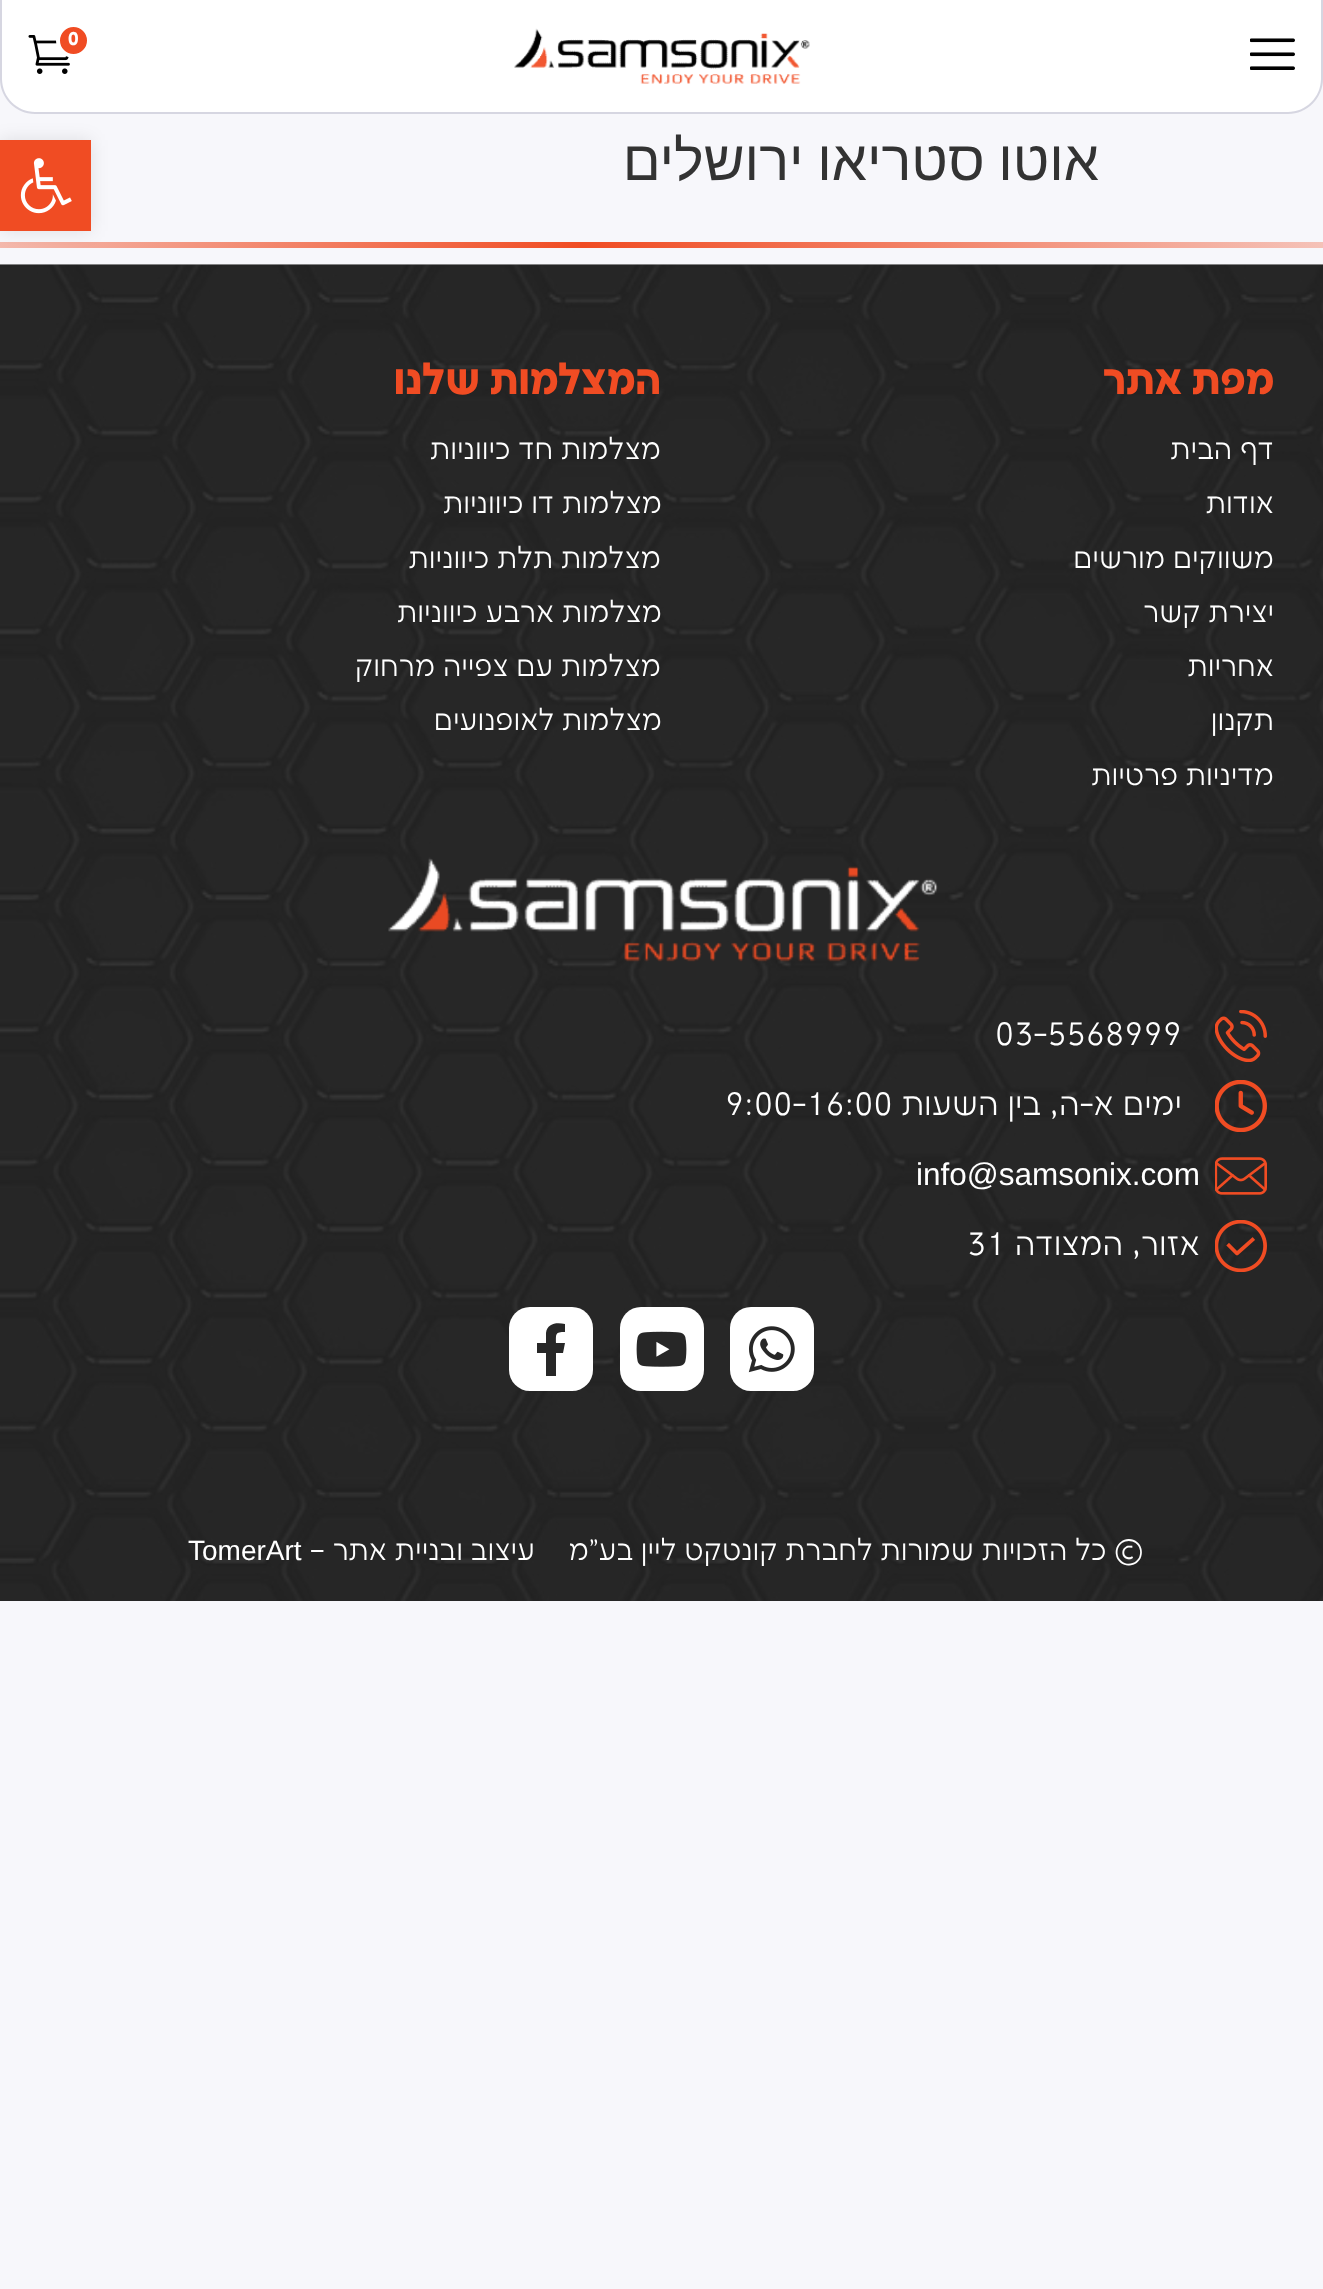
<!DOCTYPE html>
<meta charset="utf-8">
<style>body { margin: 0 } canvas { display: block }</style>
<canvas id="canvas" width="1323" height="2289"></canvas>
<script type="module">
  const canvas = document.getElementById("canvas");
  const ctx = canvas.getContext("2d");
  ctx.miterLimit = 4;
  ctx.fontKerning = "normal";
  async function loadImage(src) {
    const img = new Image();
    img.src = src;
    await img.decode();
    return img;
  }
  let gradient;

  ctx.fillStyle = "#f7f7fb";
  ctx.fillRect(0, 0, 1323, 2289);
  ctx.fillStyle = "#ffffff";
  ctx.beginPath();
  ctx.roundRect(2, 0, 1319, 112, [0, 0, 33, 33]);
  ctx.fill();
  ctx.fillStyle = "#d6d6e1";
  ctx.beginPath();
  ctx.moveTo(0, 0);
  ctx.lineTo(1323, 0);
  ctx.lineTo(1323, 79);
  ctx.bezierCurveTo(1323, 98, 1307, 114, 1288, 114);
  ctx.lineTo(35, 114);
  ctx.bezierCurveTo(16, 114, 0, 98, 0, 79);
  ctx.closePath();
  ctx.moveTo(2, 0);
  ctx.lineTo(1321, 0);
  ctx.lineTo(1321, 79);
  ctx.bezierCurveTo(1321, 97, 1306, 112, 1288, 112);
  ctx.lineTo(35, 112);
  ctx.bezierCurveTo(17, 112, 2, 97, 2, 79);
  ctx.closePath();
  ctx.fill("evenodd");
  ctx.drawImage(await loadImage("img1.png"), 1250, 38, 45, 32);
  ctx.drawImage(await loadImage("img2.png"), 514, 28, 296, 56);
  ctx.drawImage(await loadImage("img3.png"), 28, 35, 42, 39);
  ctx.fillStyle = "#f04c23";
  ctx.beginPath();
  ctx.arc(73.5, 40.5, 15.5, 0, Math.PI * 2);
  ctx.fill();
  ctx.strokeStyle = "#ffffff";
  ctx.lineWidth = 4;
  ctx.stroke();
  ctx.font = "bold 18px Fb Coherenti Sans";
  ctx.fillStyle = "#ffffff";
  ctx.fillText("0", 68, 45);
  ctx.wordSpacing = "-2px";
  ctx.direction = "rtl";
  ctx.font = "56px Liberation Sans";
  ctx.fillStyle = "#333333";
  ctx.fillText("אוטו סטריאו ירושלים", 1099, 180);
  gradient = ctx.createLinearGradient(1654, 242, -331, 242);
  gradient.addColorStop(0, "#f7f7fb");
  gradient.addColorStop(0.54, "#f04c23");
  gradient.addColorStop(1, "#f7f7fb");
  ctx.fillStyle = gradient;
  ctx.fillRect(0, 242, 1323, 6);
  ctx.fillStyle = "rgba(0, 0, 0, 0.1)";
  ctx.filter = "blur(9px)";
  ctx.beginPath();
  ctx.rect(0, 140, 91, 91);
  ctx.fill();
  ctx.filter = "none";
  ctx.fillStyle = "#f04c23";
  ctx.fillRect(0, 140, 91, 91);
  ctx.drawImage(await loadImage("img4.png"), 20, 158, 52, 56);
  ctx.drawImage(await loadImage("img5.png"), 0, 264, 1323, 1337);
  ctx.wordSpacing = "0px";
  ctx.font = "bold 42px Fb Coherenti Sans";
  ctx.fillText("מפת אתר", 1274, 394);
  ctx.font = "300 28px Fb Coherenti Sans";
  ctx.fillStyle = "#ffffff";
  ctx.fillText("דף הבית", 1274, 459);
  ctx.fillText("אודות", 1274, 513);
  ctx.fillText("משווקים מורשים", 1274, 568);
  ctx.fillText("יצירת קשר", 1274, 622);
  ctx.fillText("אחריות", 1274, 676);
  ctx.fillText("תקנון", 1274, 730);
  ctx.fillText("מדיניות פרטיות", 1274, 785);
  ctx.font = "bold 42px Fb Coherenti Sans";
  ctx.fillStyle = "#f04c23";
  ctx.fillText("המצלמות שלנו", 661, 394);
  ctx.font = "300 28px Fb Coherenti Sans";
  ctx.fillStyle = "#ffffff";
  ctx.fillText("מצלמות חד כיווניות", 661, 459);
  ctx.fillText("מצלמות דו כיווניות", 662, 513);
  ctx.fillText("מצלמות תלת כיווניות", 661, 568);
  ctx.fillText("מצלמות ארבע כיווניות", 662, 622);
  ctx.fillText("מצלמות עם צפייה מרחוק", 661, 676);
  ctx.fillText("מצלמות לאופנועים", 662, 730);
  ctx.drawImage(await loadImage("img6.png"), 388, 857, 550, 105);
  ctx.drawImage(await loadImage("img7.png"), 1215, 1010, 52, 52);
  ctx.direction = "ltr";
  ctx.font = "300 31.5px Fb Coherenti Sans";
  ctx.fillText("03-5568999", 995, 1045);
  ctx.drawImage(await loadImage("img8.png"), 1215, 1080, 52, 52);
  ctx.direction = "rtl";
  ctx.fillText("ימים א-ה, בין השעות", 1182, 1115);
  ctx.direction = "ltr";
  ctx.fillText("9:00-16:00", 725, 1115);
  ctx.drawImage(await loadImage("img9.png"), 1215, 1157, 52, 38);
  ctx.font = "31.5px Liberation Sans";
  ctx.fillText("infо@samsоnix.cоm", 916, 1185);
  ctx.drawImage(await loadImage("img10.png"), 1215, 1220, 52, 52);
  ctx.direction = "rtl";
  ctx.font = "300 31.5px Fb Coherenti Sans";
  ctx.fillText("אזור, המצודה", 1200, 1255);
  ctx.direction = "ltr";
  ctx.fillText("31", 967, 1255);
  ctx.beginPath();
  ctx.roundRect(730, 1307, 84, 84, 21);
  ctx.fill();
  ctx.drawImage(await loadImage("img11.png"), 748, 1326, 47, 47);
  ctx.beginPath();
  ctx.roundRect(620, 1307, 84, 84, 21);
  ctx.fill();
  ctx.drawImage(await loadImage("img12.png"), 636, 1331, 51, 36);
  ctx.beginPath();
  ctx.roundRect(509, 1307, 84, 84, 21);
  ctx.fill();
  ctx.fillStyle = "#272727";
  ctx.beginPath();
  ctx.moveTo(563, 1353);
  ctx.lineTo(565, 1343);
  ctx.lineTo(556, 1343);
  ctx.bezierCurveTo(556, 1334, 555, 1332, 565, 1332);
  ctx.lineTo(565, 1324);
  ctx.bezierCurveTo(557, 1322, 547, 1323, 546, 1333);
  ctx.lineTo(546, 1343);
  ctx.lineTo(537, 1343);
  ctx.lineTo(537, 1353);
  ctx.lineTo(546, 1353);
  ctx.lineTo(546, 1376);
  ctx.lineTo(556, 1376);
  ctx.lineTo(556, 1353);
  ctx.closePath();
  ctx.fill();
  ctx.direction = "rtl";
  ctx.font = "300 28px Fb Coherenti Sans";
  ctx.fillStyle = "#ffffff";
  ctx.fillText("© כל הזכויות שמורות לחברת קונטקט ליין בע\"מ", 1143, 1560);
  ctx.fillText("עיצוב ובניית אתר –", 535, 1560);
  ctx.direction = "ltr";
  ctx.font = "28px Liberation Sans";
  ctx.fillText("TomerArt", 188, 1560);
</script>
